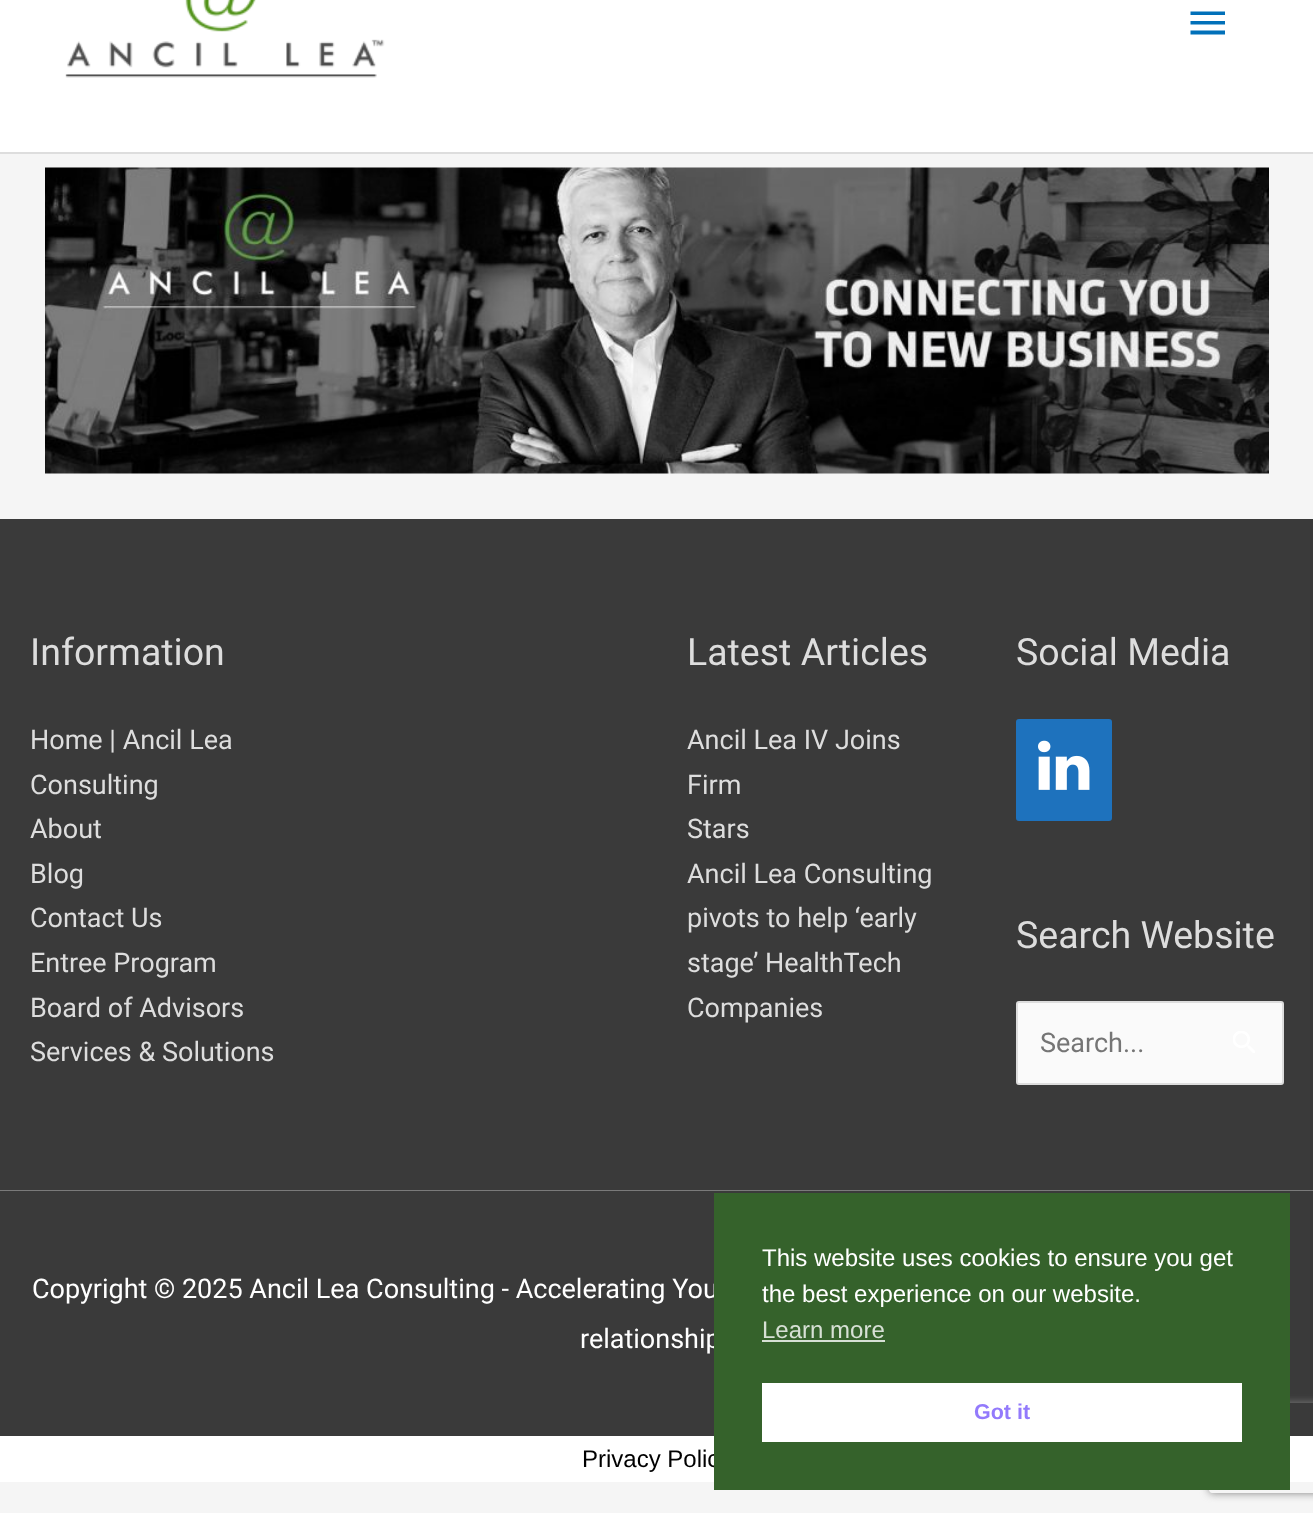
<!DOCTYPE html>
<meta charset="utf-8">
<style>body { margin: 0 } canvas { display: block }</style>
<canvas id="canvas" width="1313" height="1513"></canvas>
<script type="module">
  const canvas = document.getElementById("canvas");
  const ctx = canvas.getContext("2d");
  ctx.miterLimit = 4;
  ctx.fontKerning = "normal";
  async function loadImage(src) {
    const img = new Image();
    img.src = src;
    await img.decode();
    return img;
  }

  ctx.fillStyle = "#f5f5f5";
  ctx.fillRect(0, 0, 1313, 1513);
  ctx.fillStyle = "#ffffff";
  ctx.fillRect(0, 0, 1313, 152);
  ctx.fillStyle = "#dddddd";
  ctx.fillRect(0, 152, 1313, 2);
  ctx.drawImage(await loadImage("img1.png"), 65, 0, 320, 78);
  ctx.fillStyle = "#0170b9";
  ctx.beginPath();
  ctx.moveTo(1190.5, 11.5);
  ctx.lineTo(1225, 11.5);
  ctx.lineTo(1225, 15);
  ctx.lineTo(1190.5, 15);
  ctx.closePath();
  ctx.moveTo(1190.5, 24.5);
  ctx.lineTo(1190.5, 21);
  ctx.lineTo(1225, 21);
  ctx.lineTo(1225, 24.5);
  ctx.closePath();
  ctx.moveTo(1190.5, 34.5);
  ctx.lineTo(1190.5, 30.5);
  ctx.lineTo(1225, 30.5);
  ctx.lineTo(1225, 34.5);
  ctx.closePath();
  ctx.fill();
  ctx.drawImage(await loadImage("img2.png"), 45, 167, 1224, 307);
  ctx.fillStyle = "#3a3a3a";
  ctx.fillRect(0, 519, 1313, 671);
  ctx.font = "37.5px Roboto";
  ctx.fillStyle = "#dddddd";
  ctx.fillText("Information", 30, 665);
  ctx.font = "27px Roboto";
  ctx.fillText("Home | Ancil Lea", 30, 749);
  ctx.fillText("Consulting", 30, 794);
  ctx.fillText("About", 30, 838);
  ctx.fillText("Blog", 30, 883);
  ctx.fillText("Contact Us", 30, 927);
  ctx.fillText("Entree Program", 30, 972);
  ctx.fillText("Board of Advisors", 30, 1017);
  ctx.fillText("Services & Solutions", 30, 1061);
  ctx.font = "37.5px Roboto";
  ctx.fillText("Latest Articles", 687, 665);
  ctx.font = "27px Roboto";
  ctx.fillText("Ancil Lea IV Joins", 687, 749);
  ctx.fillText("Firm", 687, 794);
  ctx.fillText("Stars", 687, 838);
  ctx.fillText("Ancil Lea Consulting", 687, 883);
  ctx.fillText("pivots to help ‘early", 687, 927);
  ctx.fillText("stage’ HealthTech", 687, 972);
  ctx.fillText("Companies", 687, 1017);
  ctx.font = "37.5px Roboto";
  ctx.fillText("Social Media", 1016, 665);
  ctx.fillStyle = "#1e72bd";
  ctx.beginPath();
  ctx.roundRect(1016, 719, 96, 102, 3);
  ctx.fill();
  ctx.drawImage(await loadImage("img3.png"), 1038, 740, 52, 50);
  ctx.fillStyle = "#dddddd";
  ctx.fillText("Search Website", 1016, 948);
  ctx.fillStyle = "#fafafa";
  ctx.beginPath();
  ctx.roundRect(1017, 1002, 266, 82, 2);
  ctx.fill();
  ctx.strokeStyle = "#dddddd";
  ctx.lineWidth = 2;
  ctx.stroke();
  ctx.font = "27px Roboto";
  ctx.fillStyle = "#757575";
  ctx.fillText("Search...", 1040, 1052);
  ctx.drawImage(await loadImage("img4.png"), 1233, 1031, 22, 22);
  ctx.fillStyle = "#7a7a7a";
  ctx.fillRect(0, 1190, 1313, 1);
  ctx.fillStyle = "#3a3a3a";
  ctx.fillRect(0, 1191, 1313, 245);
  ctx.fillStyle = "#ffffff";
  ctx.fillText("Copyright © 2025 Ancil Lea Consulting - Accelerating You", 32, 1298);
  ctx.fillText("relationship", 580, 1348);
  ctx.save();
  ctx.beginPath();
  ctx.moveTo(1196, 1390);
  ctx.lineTo(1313, 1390);
  ctx.lineTo(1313, 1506);
  ctx.lineTo(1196, 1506);
  ctx.closePath();
  ctx.moveTo(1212, 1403);
  ctx.lineTo(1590, 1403);
  ctx.bezierCurveTo(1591.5, 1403, 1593, 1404.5, 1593, 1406);
  ctx.lineTo(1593, 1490);
  ctx.bezierCurveTo(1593, 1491.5, 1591.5, 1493, 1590, 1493);
  ctx.lineTo(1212, 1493);
  ctx.bezierCurveTo(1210.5, 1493, 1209, 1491.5, 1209, 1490);
  ctx.lineTo(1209, 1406);
  ctx.bezierCurveTo(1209, 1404.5, 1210.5, 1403, 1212, 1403);
  ctx.closePath();
  ctx.clip("evenodd");
  ctx.fillStyle = "#808080";
  ctx.filter = "blur(4px)";
  ctx.beginPath();
  ctx.roundRect(1209, 1403, 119, 90, 3);
  ctx.fill();
  ctx.filter = "none";
  ctx.restore();
  ctx.fillRect(0, 1436, 1313, 46);
  ctx.font = "24px Liberation Sans";
  ctx.fillStyle = "#000000";
  ctx.fillText("Privacy Polic", 582, 1467);
  ctx.fillStyle = "#35622b";
  ctx.fillRect(714, 1193, 576, 297);
  ctx.fillStyle = "#ffffff";
  ctx.fillText("This website uses cookies to ensure you get", 762, 1266);
  ctx.fillText("the best experience on our website.", 762, 1302);
  ctx.fillStyle = "#d7e0d5";
  ctx.fillText("Learn more", 762, 1338);
  ctx.fillRect(762, 1340, 123, 2);
  ctx.fillStyle = "#ffffff";
  ctx.fillRect(762, 1383, 480, 59);
  ctx.font = "bold 21.5px Liberation Sans";
  ctx.fillStyle = "#937afc";
  ctx.fillText("Got it", 974, 1419);
</script>
